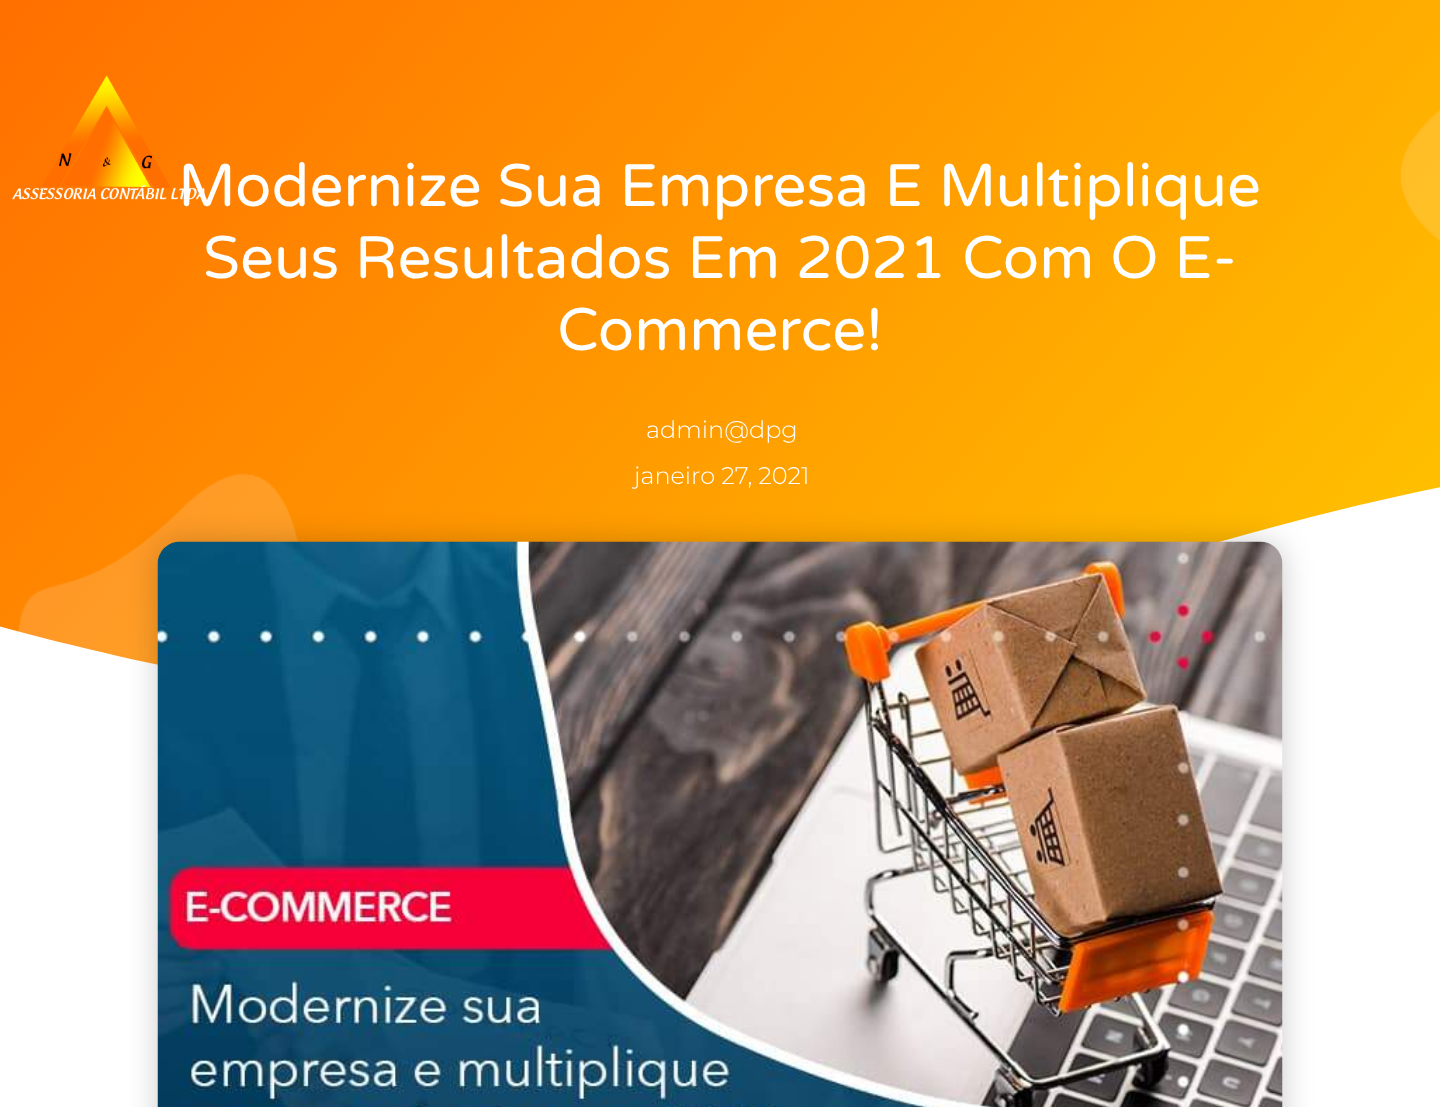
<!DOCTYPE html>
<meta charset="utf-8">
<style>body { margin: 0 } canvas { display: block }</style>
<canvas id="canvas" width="1440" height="1107"></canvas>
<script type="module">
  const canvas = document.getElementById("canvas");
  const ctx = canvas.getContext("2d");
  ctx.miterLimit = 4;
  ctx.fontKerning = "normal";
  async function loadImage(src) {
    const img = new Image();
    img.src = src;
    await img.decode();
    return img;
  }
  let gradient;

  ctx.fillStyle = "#ffffff";
  ctx.fillRect(0, 0, 1440, 1107);
  gradient = ctx.createLinearGradient(120, -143, 1320, 864);
  gradient.addColorStop(0, "#ff6f00");
  gradient.addColorStop(0.89, "#ffbe00");
  ctx.fillStyle = gradient;
  ctx.fillRect(0, 0, 1440, 665);
  ctx.drawImage(await loadImage("img2.png"), 18, 110, 1422, 555);
  ctx.font = "60px Varela Round";
  ctx.fillStyle = "#ffffff";
  ctx.fillText("Modernize Sua Empresa E Multiplique", 178, 206);
  ctx.drawImage(await loadImage("img1.png"), 12, 75, 193, 125);
  ctx.fillText("Seus Resultados Em 2021 Com O E-", 203, 278);
  ctx.fillText("Commerce!", 557, 350);
  ctx.font = "300 24px Montserrat";
  ctx.fillText("admin@dpg", 646, 438);
  ctx.beginPath();
  ctx.moveTo(427, 703);
  ctx.bezierCurveTo(512, 711, 620, 702, 710, 688);
  ctx.bezierCurveTo(799, 673, 976, 619, 1087, 583);
  ctx.bezierCurveTo(1371, 489, 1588, 453, 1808, 438);
  ctx.bezierCurveTo(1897, 432, 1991, 428, 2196, 445);
  ctx.bezierCurveTo(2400, 463, 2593, 520, 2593, 520);
  ctx.lineTo(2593, 722);
  ctx.lineTo(-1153, 722);
  ctx.lineTo(-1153, 634);
  ctx.bezierCurveTo(-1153, 634, -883, 538, -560, 545);
  ctx.bezierCurveTo(-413, 547, -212, 564, -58, 610);
  ctx.bezierCurveTo(22, 634, 138, 663, 241, 681);
  ctx.bezierCurveTo(343, 699, 389, 700, 427, 703);
  ctx.closePath();
  ctx.fill();
  ctx.fillText("janeiro 27, 2021", 634, 484);
  ctx.fillStyle = "rgba(0, 0, 0, 0.2)";
  ctx.filter = "blur(15px)";
  ctx.beginPath();
  ctx.roundRect(158, 542, 1125, 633, 23);
  ctx.fill();
  ctx.filter = "none";
  ctx.drawImage(await loadImage("img3.png"), 157, 541, 1126, 566);
</script>
